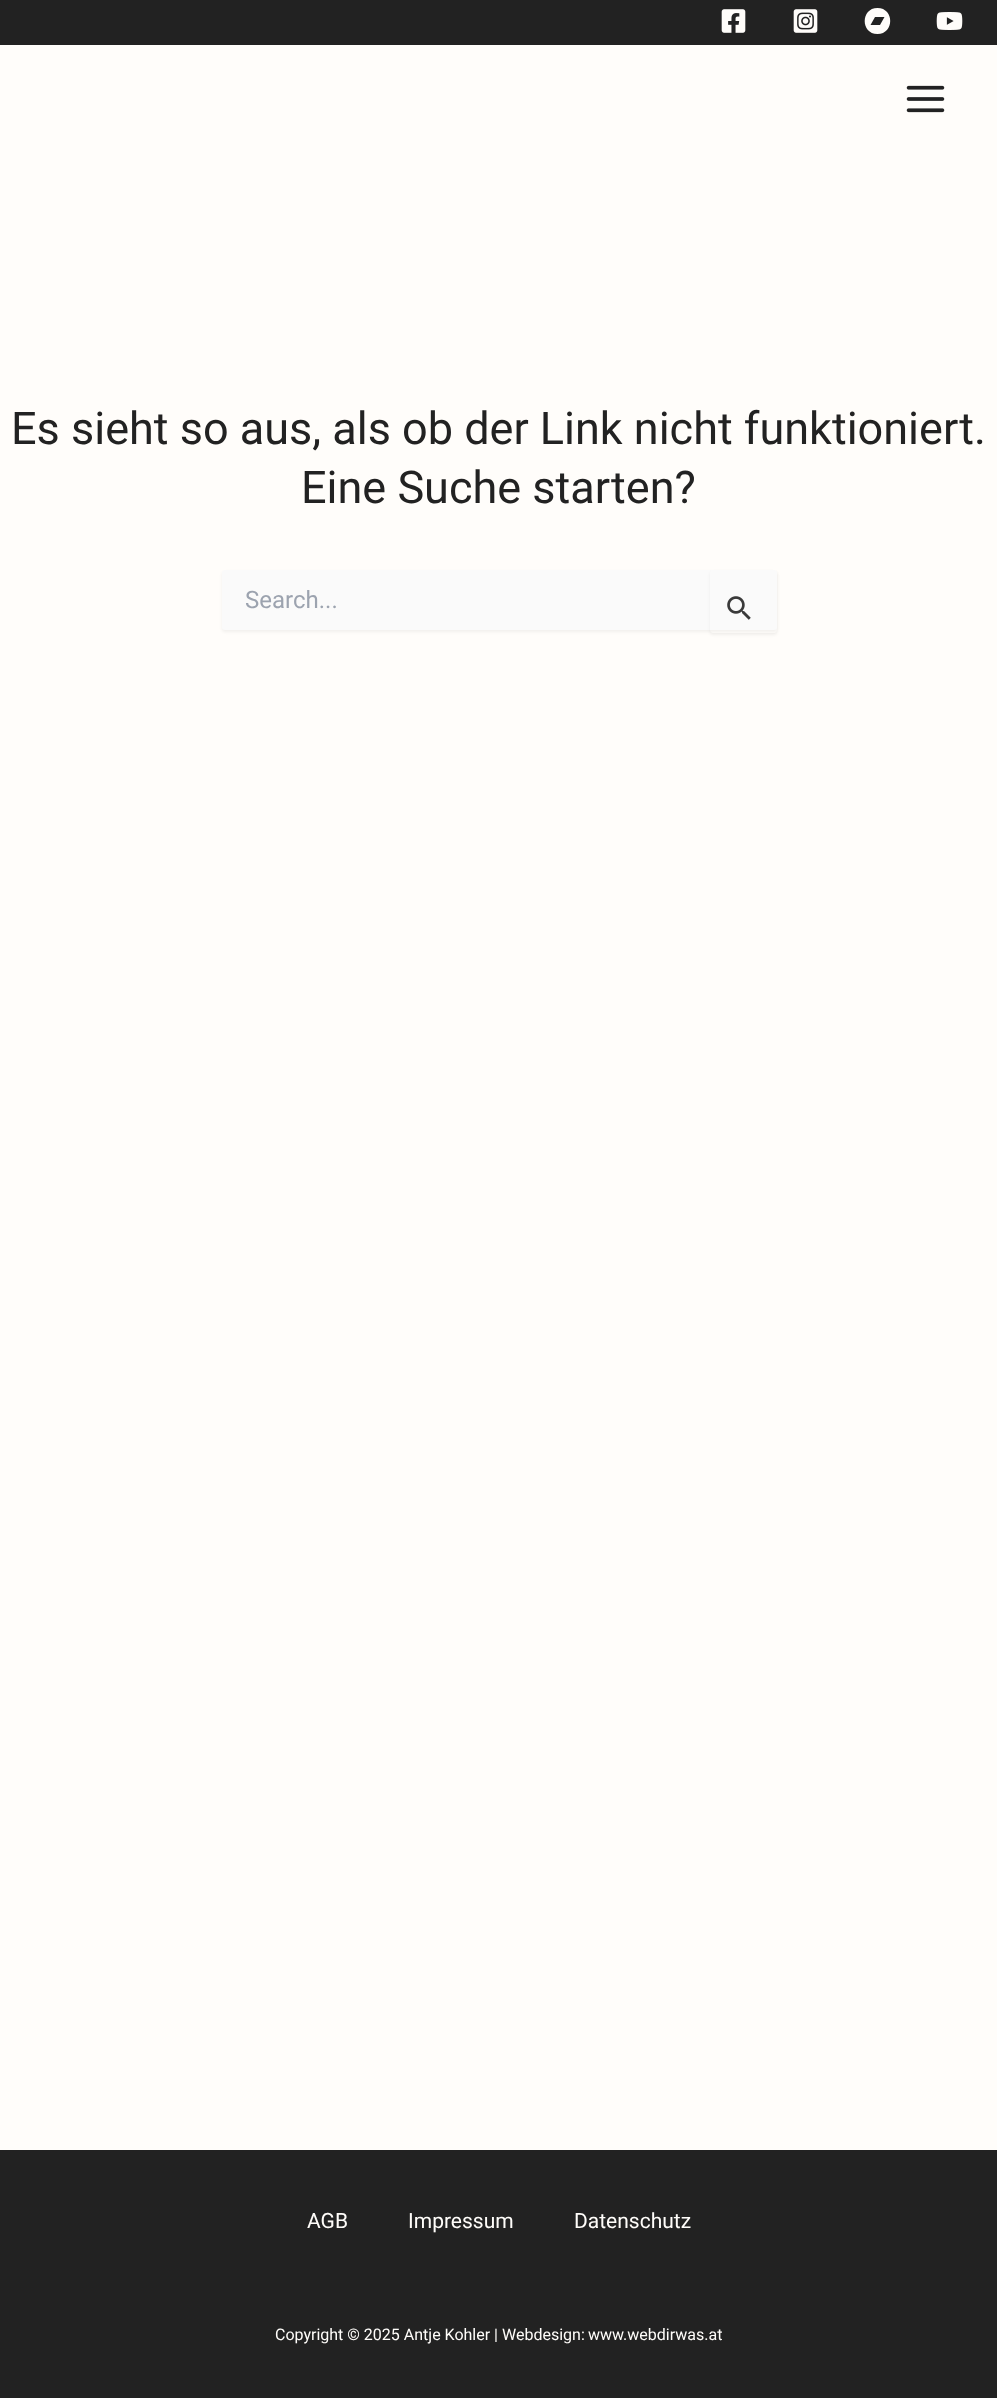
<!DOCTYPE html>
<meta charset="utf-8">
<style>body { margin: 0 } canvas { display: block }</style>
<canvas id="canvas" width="997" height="2398"></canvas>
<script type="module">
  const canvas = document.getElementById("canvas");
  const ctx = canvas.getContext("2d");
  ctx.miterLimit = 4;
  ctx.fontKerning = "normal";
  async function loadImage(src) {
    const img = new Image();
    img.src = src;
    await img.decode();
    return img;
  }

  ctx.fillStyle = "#fffdfa";
  ctx.fillRect(0, 0, 997, 2398);
  ctx.fillStyle = "#222222";
  ctx.fillRect(0, 0, 997, 45);
  ctx.drawImage(await loadImage("img1.png"), 721, 9, 25, 24);
  ctx.drawImage(await loadImage("img2.png"), 793, 9, 25, 24);
  ctx.fillStyle = "#fffdfa";
  ctx.beginPath();
  ctx.moveTo(877.5, 8);
  ctx.bezierCurveTo(860.5, 8, 860.5, 34, 877.5, 34);
  ctx.bezierCurveTo(894.5, 34, 894.5, 8, 877.5, 8);
  ctx.closePath();
  ctx.moveTo(880, 25);
  ctx.lineTo(870.5, 25);
  ctx.lineTo(875, 17);
  ctx.lineTo(884.5, 17);
  ctx.closePath();
  ctx.fill();
  ctx.drawImage(await loadImage("img3.png"), 936, 12, 27, 18);
  ctx.drawImage(await loadImage("img4.png"), 906, 85, 39, 28);
  ctx.font = "45px Roboto";
  ctx.fillStyle = "#222222";
  ctx.fillText("Es sieht so aus, als ob der Link nicht funktioniert.", 11, 444);
  ctx.fillText("Eine Suche starten?", 301, 503);
  ctx.fillStyle = "rgba(0, 0, 0, 0.05)";
  ctx.filter = "blur(1.5px)";
  ctx.beginPath();
  ctx.roundRect(222, 572, 555, 60, 3);
  ctx.fill();
  ctx.filter = "none";
  ctx.fillStyle = "#fafafa";
  ctx.beginPath();
  ctx.roundRect(222, 570, 555, 60, 3);
  ctx.fill();
  ctx.font = "24px Roboto";
  ctx.fillStyle = "#9ca3af";
  ctx.fillText("Search...", 245, 608);
  ctx.drawImage(await loadImage("img5.png"), 727, 596, 24, 24);
  ctx.save();
  ctx.beginPath();
  ctx.moveTo(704, 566);
  ctx.lineTo(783, 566);
  ctx.lineTo(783, 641);
  ctx.lineTo(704, 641);
  ctx.closePath();
  ctx.moveTo(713, 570);
  ctx.lineTo(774, 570);
  ctx.bezierCurveTo(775.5, 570, 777, 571.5, 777, 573);
  ctx.lineTo(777, 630);
  ctx.bezierCurveTo(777, 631.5, 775.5, 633, 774, 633);
  ctx.lineTo(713, 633);
  ctx.bezierCurveTo(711.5, 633, 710, 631.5, 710, 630);
  ctx.lineTo(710, 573);
  ctx.bezierCurveTo(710, 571.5, 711.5, 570, 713, 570);
  ctx.closePath();
  ctx.clip("evenodd");
  ctx.fillStyle = "rgba(0, 0, 0, 0.05)";
  ctx.filter = "blur(1.5px)";
  ctx.beginPath();
  ctx.roundRect(710, 572, 67, 63, 3);
  ctx.fill();
  ctx.filter = "none";
  ctx.restore();
  ctx.fillStyle = "#222222";
  ctx.fillRect(0, 2150, 997, 248);
  ctx.font = "21px Roboto";
  ctx.fillStyle = "#fffdfa";
  ctx.fillText("AGB", 307, 2228);
  ctx.fillText("Impressum", 408, 2228);
  ctx.fillText("Datenschutz", 574, 2228);
  ctx.font = "16px Roboto";
  ctx.fillText("Copyright © 2025 Antje Kohler | Webdesign:", 275, 2340);
  ctx.fillText("www.webdirwas.at", 588, 2340);
</script>
